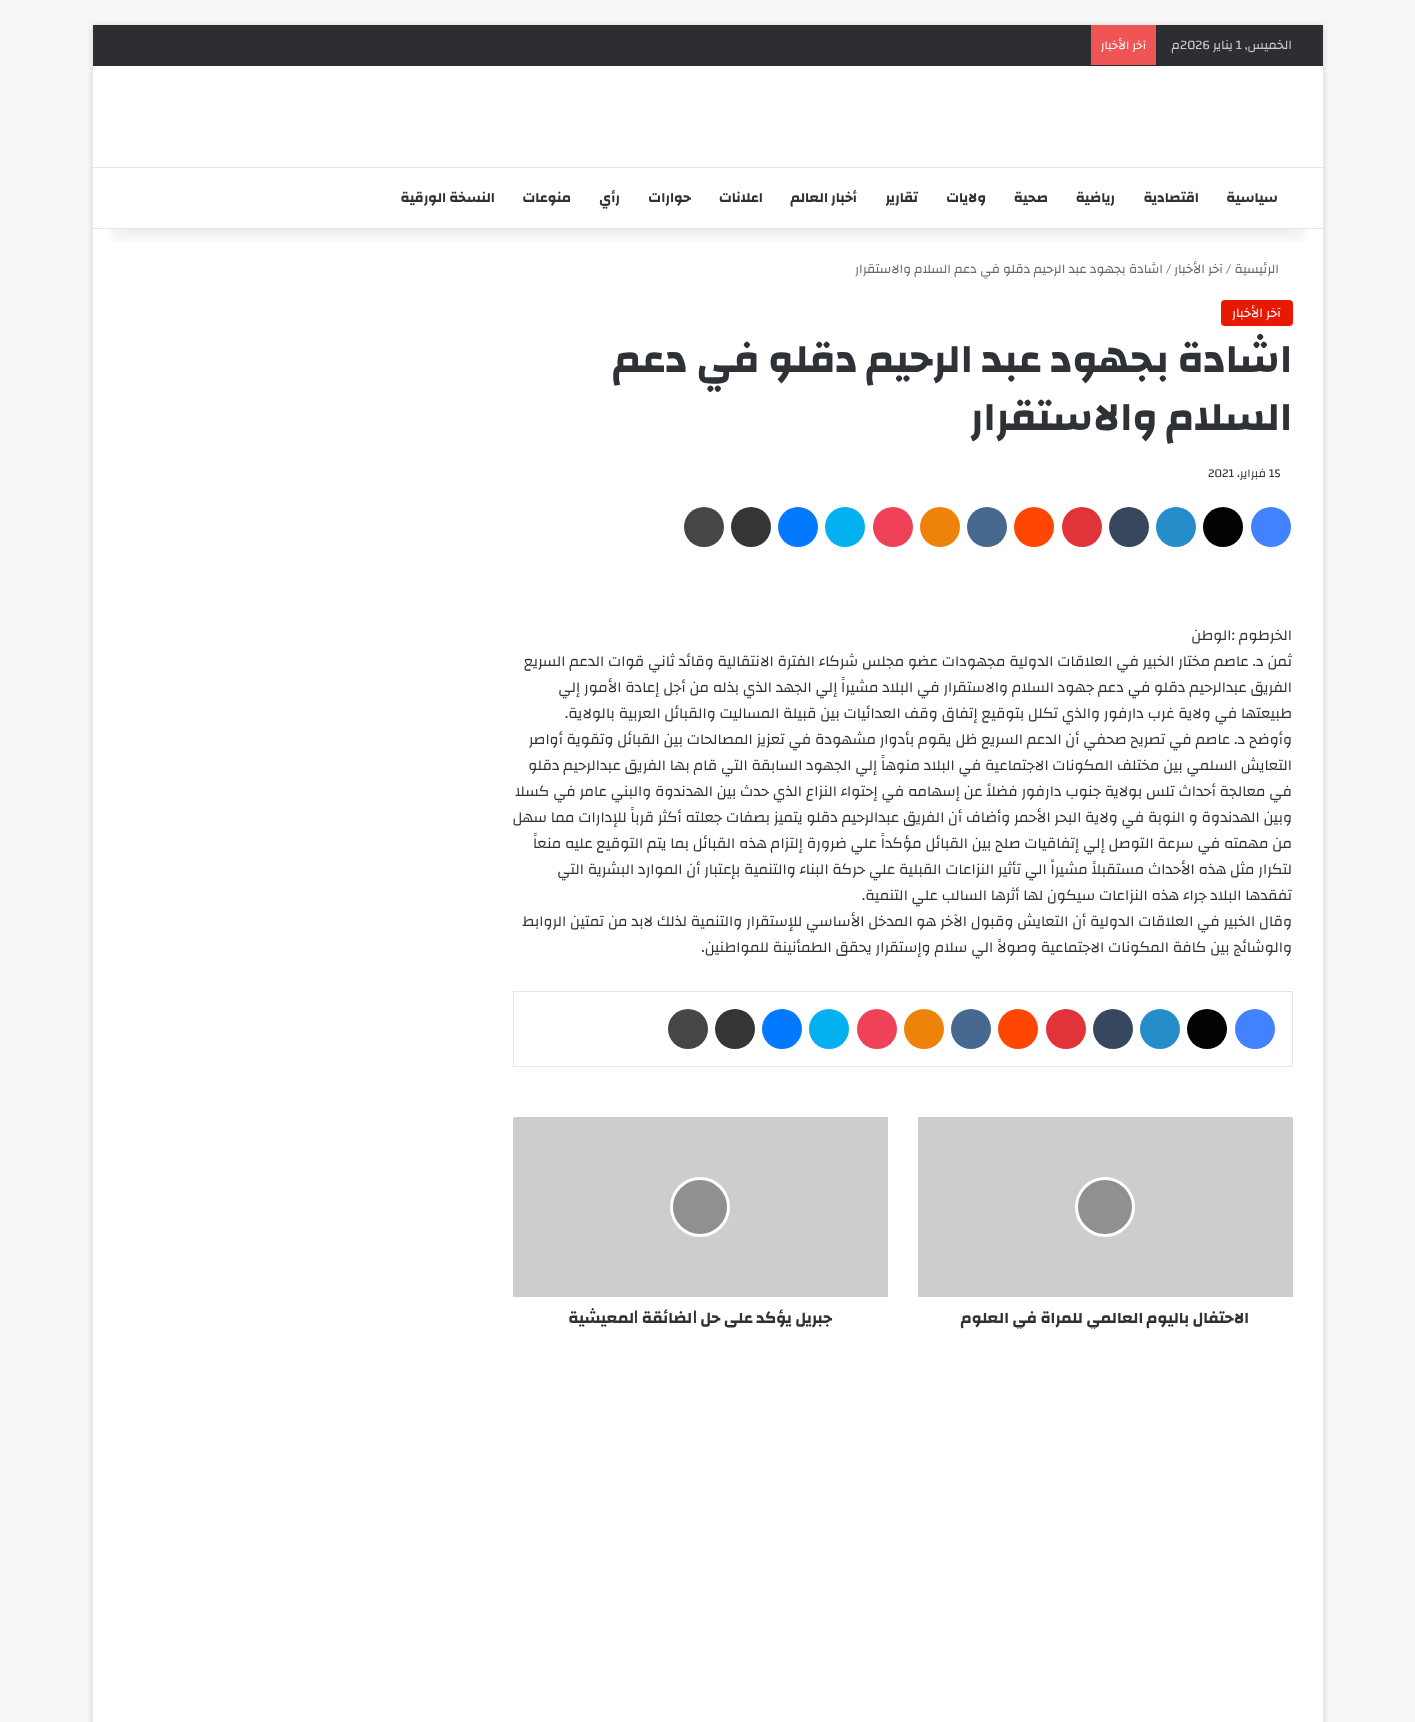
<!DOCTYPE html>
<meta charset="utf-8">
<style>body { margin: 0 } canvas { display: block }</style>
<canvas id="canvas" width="1415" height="1722"></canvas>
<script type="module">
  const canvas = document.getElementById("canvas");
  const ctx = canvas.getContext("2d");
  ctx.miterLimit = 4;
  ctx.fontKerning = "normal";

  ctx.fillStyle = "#f7f7f7";
  ctx.fillRect(0, 0, 1415, 1722);
  ctx.fillStyle = "rgba(171, 171, 171, 0.5)";
  ctx.filter = "blur(3.5px)";
  ctx.beginPath();
  ctx.rect(93, 26, 1230, 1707);
  ctx.fill();
  ctx.filter = "none";
  ctx.fillStyle = "#ffffff";
  ctx.fillRect(93, 66, 1230, 1656);
  ctx.save();
  ctx.beginPath();
  ctx.rect(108, 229, 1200, 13);
  ctx.clip();
  ctx.fillStyle = "rgba(0, 0, 0, 0.1)";
  ctx.filter = "blur(10px)";
  ctx.beginPath();
  ctx.rect(113, 70, 1190, 164);
  ctx.fill();
  ctx.filter = "none";
  ctx.restore();
  ctx.fillStyle = "#2c2e32";
  ctx.fillRect(93, 25, 1230, 40);
  ctx.fillStyle = "#28292d";
  ctx.fillRect(93, 65, 1230, 1);
  ctx.direction = "rtl";
  ctx.font = "13px Changa";
  ctx.fillStyle = "#cccccc";
  ctx.fillText("الخميس,", 1292, 49);
  ctx.direction = "ltr";
  ctx.fillText("1", 1236, 49);
  ctx.direction = "rtl";
  ctx.fillText("يناير", 1233, 49);
  ctx.direction = "ltr";
  ctx.fillText("2026", 1180, 49);
  ctx.direction = "rtl";
  ctx.fillText("م", 1180, 49);
  ctx.fillStyle = "#f05555";
  ctx.fillRect(1091, 25, 65, 40);
  ctx.font = "12px Changa";
  ctx.fillStyle = "#ffffff";
  ctx.fillText("آخر الأخبار", 1146, 49);
  ctx.fillStyle = "#e6e6e6";
  ctx.fillRect(93, 167, 1230, 1);
  ctx.fillRect(93, 228, 1230, 1);
  ctx.font = "bold 14px Changa";
  ctx.fillStyle = "#2e3136";
  ctx.fillText("سياسية", 1278, 202);
  ctx.fillText("اقتصادية", 1199, 202);
  ctx.fillText("رياضية", 1115, 202);
  ctx.fillText("صحية", 1048, 202);
  ctx.fillText("ولايات", 986, 202);
  ctx.fillText("تقارير", 918, 202);
  ctx.fillText("أخبار العالم", 857, 202);
  ctx.fillText("اعلانات", 763, 202);
  ctx.fillText("حوارات", 691, 202);
  ctx.fillText("رأي", 620, 202);
  ctx.fillText("منوعات", 571, 202);
  ctx.fillText("النسخة الورقية", 495, 202);
  ctx.font = "13px Changa";
  ctx.fillStyle = "#686868";
  ctx.fillText("الرئيسية", 1279, 273);
  ctx.direction = "ltr";
  ctx.fillText("/", 1226, 273);
  ctx.direction = "rtl";
  ctx.fillText("آخر الأخبار", 1223, 273);
  ctx.direction = "ltr";
  ctx.fillText("/", 1166, 273);
  ctx.direction = "rtl";
  ctx.fillText("اشادة بجهود عبد الرحيم دقلو في دعم السلام والاستقرار", 1163, 273);
  ctx.fillStyle = "#e81903";
  ctx.beginPath();
  ctx.roundRect(1221, 300, 72, 26, 4);
  ctx.fill();
  ctx.fillStyle = "#ffffff";
  ctx.fillText("آخر الأخبار", 1281, 317);
  ctx.font = "bold 41px Changa";
  ctx.fillStyle = "#2e3136";
  ctx.fillText("اشادة بجهود عبد الرحيم دقلو في دعم", 1292, 372);
  ctx.fillText("السلام والاستقرار", 1292, 430);
  ctx.direction = "ltr";
  ctx.font = "12px Changa";
  ctx.fillStyle = "#353535";
  ctx.fillText("15", 1269, 477);
  ctx.direction = "rtl";
  ctx.fillText("فبراير،", 1266, 477);
  ctx.direction = "ltr";
  ctx.fillText("2021", 1208, 477);
  ctx.fillStyle = "#4281ff";
  ctx.beginPath();
  ctx.arc(1271, 527, 20, 0, Math.PI * 2);
  ctx.fill();
  ctx.fillStyle = "#030303";
  ctx.beginPath();
  ctx.arc(1223, 527, 20, 0, Math.PI * 2);
  ctx.fill();
  ctx.fillStyle = "#258dc9";
  ctx.beginPath();
  ctx.arc(1176, 527, 20, 0, Math.PI * 2);
  ctx.fill();
  ctx.fillStyle = "#37485e";
  ctx.beginPath();
  ctx.arc(1129, 527, 20, 0, Math.PI * 2);
  ctx.fill();
  ctx.fillStyle = "#e1333a";
  ctx.beginPath();
  ctx.arc(1082, 527, 20, 0, Math.PI * 2);
  ctx.fill();
  ctx.fillStyle = "#ff4703";
  ctx.beginPath();
  ctx.arc(1034, 527, 20, 0, Math.PI * 2);
  ctx.fill();
  ctx.fillStyle = "#47688f";
  ctx.beginPath();
  ctx.arc(987, 527, 20, 0, Math.PI * 2);
  ctx.fill();
  ctx.fillStyle = "#ee830a";
  ctx.beginPath();
  ctx.arc(940, 527, 20, 0, Math.PI * 2);
  ctx.fill();
  ctx.fillStyle = "#ef4258";
  ctx.beginPath();
  ctx.arc(893, 527, 20, 0, Math.PI * 2);
  ctx.fill();
  ctx.fillStyle = "#03b0f0";
  ctx.beginPath();
  ctx.arc(845, 527, 20, 0, Math.PI * 2);
  ctx.fill();
  ctx.fillStyle = "#0379ff";
  ctx.beginPath();
  ctx.arc(798, 527, 20, 0, Math.PI * 2);
  ctx.fill();
  ctx.fillStyle = "#353535";
  ctx.beginPath();
  ctx.arc(751, 527, 20, 0, Math.PI * 2);
  ctx.fill();
  ctx.fillStyle = "#464646";
  ctx.beginPath();
  ctx.arc(704, 527, 20, 0, Math.PI * 2);
  ctx.fill();
  ctx.direction = "rtl";
  ctx.font = "15px Changa";
  ctx.fillStyle = "#2e3136";
  ctx.fillText("الخرطوم :الوطن", 1292, 640);
  ctx.fillText("ثمن د. عاصم مختار الخبير في العلاقات الدولية مجهودات عضو مجلس شركاء الفترة الانتقالية وقائد ثاني قوات الدعم السريع", 1292, 666);
  ctx.fillText("الفريق عبدالرحيم دقلو في دعم جهود السلام والاستقرار في البلاد مشيراََ إلي الجهد الذي بذله من أجل إعادة الأمور إلي", 1292, 692);
  ctx.fillText("طبيعتها في ولاية غرب دارفور والذي تكلل بتوقيع إتفاق وقف العدائيات بين قبيلة المساليت والقبائل العربية بالولاية.", 1292, 718);
  ctx.fillText("وأوضح د. عاصم في تصريح صحفي أن الدعم السريع ظل يقوم بأدوار مشهودة في تعزيز المصالحات بين القبائل وتقوية أواصر", 1292, 744);
  ctx.fillText("التعايش السلمي بين مختلف المكونات الاجتماعية في البلاد منوهاََ إلي الجهود السابقة التي قام بها الفريق عبدالرحيم دقلو", 1292, 770);
  ctx.fillText("في معالجة أحداث تلس بولاية جنوب دارفور فضلاً عن إسهامه في إحتواء النزاع الذي حدث بين الهدندوة والبني عامر في كسلا", 1292, 796);
  ctx.fillText("وبين الهدندوة و النوبة في ولاية البحر الأحمر وأضاف أن الفريق عبدالرحيم دقلو يتميز بصفات جعلته أكثر قرباََ للإدارات مما سهل", 1292, 822);
  ctx.fillText("من مهمته في سرعة التوصل إلي إتفاقيات صلح بين القبائل مؤكداََ علي ضرورة إلتزام هذه القبائل بما يتم التوقيع عليه منعاََ", 1292, 848);
  ctx.fillText("لتكرار مثل هذه الأحداث مستقبلاََ مشيراً الي تأثير النزاعات القبلية علي حركة البناء والتنمية بإعتبار أن الموارد البشرية التي", 1292, 874);
  ctx.fillText("تفقدها البلاد جراء هذه النزاعات سيكون لها أثرها السالب علي التنمية.", 1292, 900);
  ctx.fillText("وقال الخبير في العلاقات الدولية أن التعايش وقبول الآخر هو المدخل الأساسي للإستقرار والتنمية لذلك لابد من تمتين الروابط", 1292, 926);
  ctx.fillText("والوشائج بين كافة المكونات الاجتماعية وصولاََ الي سلام وإستقرار يحقق الطمأنينة للمواطنين.", 1292, 952);
  ctx.strokeStyle = "#e6e6e6";
  ctx.strokeRect(513.5, 991.5, 779, 75);
  ctx.fillStyle = "#4281ff";
  ctx.beginPath();
  ctx.arc(1255, 1029, 20, 0, Math.PI * 2);
  ctx.fill();
  ctx.fillStyle = "#030303";
  ctx.beginPath();
  ctx.arc(1207, 1029, 20, 0, Math.PI * 2);
  ctx.fill();
  ctx.fillStyle = "#258dc9";
  ctx.beginPath();
  ctx.arc(1160, 1029, 20, 0, Math.PI * 2);
  ctx.fill();
  ctx.fillStyle = "#37485e";
  ctx.beginPath();
  ctx.arc(1113, 1029, 20, 0, Math.PI * 2);
  ctx.fill();
  ctx.fillStyle = "#e1333a";
  ctx.beginPath();
  ctx.arc(1066, 1029, 20, 0, Math.PI * 2);
  ctx.fill();
  ctx.fillStyle = "#ff4703";
  ctx.beginPath();
  ctx.arc(1018, 1029, 20, 0, Math.PI * 2);
  ctx.fill();
  ctx.fillStyle = "#47688f";
  ctx.beginPath();
  ctx.arc(971, 1029, 20, 0, Math.PI * 2);
  ctx.fill();
  ctx.fillStyle = "#ee830a";
  ctx.beginPath();
  ctx.arc(924, 1029, 20, 0, Math.PI * 2);
  ctx.fill();
  ctx.fillStyle = "#ef4258";
  ctx.beginPath();
  ctx.arc(877, 1029, 20, 0, Math.PI * 2);
  ctx.fill();
  ctx.fillStyle = "#03b0f0";
  ctx.beginPath();
  ctx.arc(829, 1029, 20, 0, Math.PI * 2);
  ctx.fill();
  ctx.fillStyle = "#0379ff";
  ctx.beginPath();
  ctx.arc(782, 1029, 20, 0, Math.PI * 2);
  ctx.fill();
  ctx.fillStyle = "#353535";
  ctx.beginPath();
  ctx.arc(735, 1029, 20, 0, Math.PI * 2);
  ctx.fill();
  ctx.fillStyle = "#464646";
  ctx.beginPath();
  ctx.arc(688, 1029, 20, 0, Math.PI * 2);
  ctx.fill();
  ctx.fillStyle = "#cdcdcd";
  ctx.beginPath();
  ctx.roundRect(918, 1117, 375, 180, [0, 2, 0, 0]);
  ctx.fill();
  ctx.fillStyle = "#909090";
  ctx.beginPath();
  ctx.arc(1105, 1207, 28.5, 0, Math.PI * 2);
  ctx.fill();
  ctx.strokeStyle = "#ffffff";
  ctx.lineWidth = 3;
  ctx.stroke();
  ctx.save();
  ctx.beginPath();
  ctx.roundRect(513, 1117, 780, 212, 2);
  ctx.clip();
  ctx.font = "bold 16px Changa";
  ctx.fillStyle = "#2e3136";
  ctx.fillText("الاحتفال باليوم العالمي للمراة في العلوم", 1249, 1323);
  ctx.restore();
  ctx.fillStyle = "#cdcdcd";
  ctx.beginPath();
  ctx.roundRect(513, 1117, 375, 180, [2, 0, 0, 0]);
  ctx.fill();
  ctx.fillStyle = "#909090";
  ctx.beginPath();
  ctx.arc(700, 1207, 28.5, 0, Math.PI * 2);
  ctx.fill();
  ctx.stroke();
  ctx.font = "bold 16px Changa";
  ctx.fillStyle = "#2e3136";
  ctx.fillText("ﺟﺒﺮﻳﻞ ﻳﺆﻛﺪ ﻋﻠﻰ ﺣﻞ", 832, 1323);
  ctx.font = "bold 16px DejaVu Sans";
  ctx.fillText("ﺍ", 697, 1323);
  ctx.font = "bold 16px Changa";
  ctx.fillText("ﻟﻀﺎﺋﻘﺔ", 692, 1323);
  ctx.font = "bold 16px DejaVu Sans";
  ctx.fillText("ﺍ", 638, 1323);
  ctx.font = "bold 16px Changa";
  ctx.fillText("ﻟﻤﻌﻴﺸﻴﺔ", 634, 1323);
</script>
